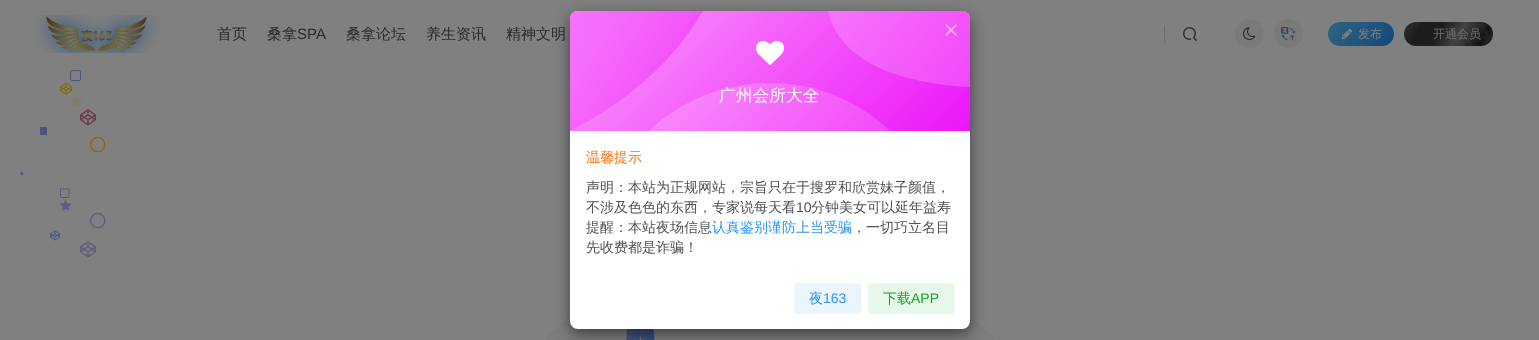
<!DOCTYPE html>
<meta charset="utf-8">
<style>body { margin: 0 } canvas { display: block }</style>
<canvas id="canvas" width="1539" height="340"></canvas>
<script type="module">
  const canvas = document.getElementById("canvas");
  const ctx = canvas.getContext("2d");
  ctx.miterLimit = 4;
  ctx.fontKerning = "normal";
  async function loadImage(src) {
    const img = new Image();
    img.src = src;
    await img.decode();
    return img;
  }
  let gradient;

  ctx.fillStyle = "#808080";
  ctx.fillRect(0, 0, 1539, 340);
  ctx.drawImage(await loadImage("img1.png"), 70, 70, 11, 11);
  ctx.drawImage(await loadImage("img2.png"), 60, 82, 12, 13);
  ctx.drawImage(await loadImage("img3.png"), 70, 95, 13, 13);
  ctx.drawImage(await loadImage("img4.png"), 80, 109, 16, 17);
  ctx.fillStyle = "#4b5580";
  ctx.fillRect(40, 127, 7, 8);
  ctx.drawImage(await loadImage("img5.png"), 90, 136, 16, 17);
  ctx.drawImage(await loadImage("img6.png"), 60, 154, 11, 11);
  ctx.drawImage(await loadImage("img7.png"), 20, 171, 4, 5);
  ctx.drawImage(await loadImage("img8.png"), 10, 184, 2, 2);
  ctx.drawImage(await loadImage("img9.png"), 60, 188, 10, 10);
  ctx.drawImage(await loadImage("img10.png"), 60, 200, 11, 11);
  ctx.drawImage(await loadImage("img11.png"), 90, 212, 16, 17);
  ctx.drawImage(await loadImage("img12.png"), 50, 230, 10, 11);
  ctx.drawImage(await loadImage("img13.png"), 80, 241, 16, 17);
  ctx.drawImage(await loadImage("img14.png"), 33, 15, 127, 38);
  ctx.font = "500 15px WenQuanYi Zen Hei";
  ctx.fillStyle = "#272a2c";
  ctx.fillText("首页", 217, 39);
  ctx.fillText("桑拿", 267, 39);
  ctx.font = "15px Liberation Sans";
  ctx.fillText("SPA", 297, 39);
  ctx.font = "500 15px WenQuanYi Zen Hei";
  ctx.fillText("桑拿论坛", 346, 39);
  ctx.fillText("养生资讯", 426, 39);
  ctx.fillText("精神文明", 506, 39);
  ctx.fillStyle = "#6e6f6f";
  ctx.fillRect(1164, 26, 1, 17);
  ctx.drawImage(await loadImage("img15.png"), 1183, 27, 14, 14);
  ctx.fillStyle = "#7a7a7a";
  ctx.beginPath();
  ctx.arc(1249.5, 33.5, 14.5, 0, Math.PI * 2);
  ctx.fill();
  ctx.drawImage(await loadImage("img16.png"), 1243, 27, 13, 14);
  ctx.beginPath();
  ctx.arc(1288.5, 33.5, 14.5, 0, Math.PI * 2);
  ctx.fill();
  ctx.drawImage(await loadImage("img17.png"), 1281, 27, 15, 15);
  gradient = ctx.createLinearGradient(1339, 12, 1384, 57);
  gradient.addColorStop(0.1, "#2d627e");
  gradient.addColorStop(1, "#13477c");
  ctx.fillStyle = gradient;
  ctx.beginPath();
  ctx.roundRect(1328, 22, 66, 24, 12);
  ctx.fill();
  ctx.drawImage(await loadImage("img18.png"), 1342, 28, 11, 11);
  ctx.font = "500 12px WenQuanYi Zen Hei";
  ctx.fillStyle = "#808080";
  ctx.fillText("发布", 1358, 38);
  gradient = ctx.createLinearGradient(1487, 56, 1410, 12);
  gradient.addColorStop(0, "#262729");
  gradient.addColorStop(0.15, "#151519");
  gradient.addColorStop(0.4, "#434345");
  gradient.addColorStop(0.6, "#1d1d1e");
  gradient.addColorStop(0.8, "#1d1c1c");
  gradient.addColorStop(1, "#2f3031");
  ctx.fillStyle = gradient;
  ctx.beginPath();
  ctx.roundRect(1404, 22, 89, 24, 12);
  ctx.fill();
  ctx.fillStyle = "#272423";
  ctx.fillRect(1416, 25, 1, 1);
  ctx.fillStyle = "#767070";
  ctx.fillText("开通会员", 1433, 38);
  ctx.drawImage(await loadImage("img19.png"), 1454, 24, 39, 22);
  ctx.drawImage(await loadImage("img22.png"), 545, 316, 450, 24);
  ctx.fillStyle = "rgba(0, 0, 0, 0.5)";
  ctx.filter = "blur(7.5px)";
  ctx.beginPath();
  ctx.roundRect(570, 16, 400, 318, 8);
  ctx.fill();
  ctx.filter = "none";
  ctx.fillStyle = "#ffffff";
  ctx.beginPath();
  ctx.roundRect(570, 11, 400, 318, 8);
  ctx.fill();
  gradient = ctx.createLinearGradient(660, -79, 960, 221);
  gradient.addColorStop(0.1, "#f98dfb");
  gradient.addColorStop(1, "#ea00f9");
  ctx.fillStyle = gradient;
  ctx.beginPath();
  ctx.roundRect(570, 11, 400, 120, [8, 8, 0, 0]);
  ctx.fill();
  gradient = ctx.createLinearGradient(616, 75, 923, 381);
  gradient.addColorStop(0.1, "#f98dfb");
  gradient.addColorStop(1, "#ea00f9");
  ctx.fillStyle = gradient;
  ctx.beginPath();
  ctx.moveTo(770, 83);
  ctx.bezierCurveTo(817, 83, 860, 102, 890, 131);
  ctx.lineTo(649, 131);
  ctx.bezierCurveTo(679, 102, 722, 83, 770, 83);
  ctx.closePath();
  ctx.fill();
  gradient = ctx.createLinearGradient(333, -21, 761, 62);
  gradient.addColorStop(0.1, "rgba(249, 141, 251, 0.4)");
  gradient.addColorStop(1, "rgba(234, 0, 249, 0.4)");
  ctx.fillStyle = gradient;
  ctx.beginPath();
  ctx.moveTo(578, 11);
  ctx.lineTo(703, 11);
  ctx.bezierCurveTo(673, 63, 623, 104, 570, 131);
  ctx.lineTo(570, 19);
  ctx.bezierCurveTo(570, 15, 574, 11, 578, 11);
  ctx.closePath();
  ctx.fill();
  gradient = ctx.createLinearGradient(840, -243, 1461, 60);
  gradient.addColorStop(0.1, "rgba(249, 141, 251, 0.6)");
  gradient.addColorStop(1, "rgba(234, 0, 249, 0.6)");
  ctx.fillStyle = gradient;
  ctx.beginPath();
  ctx.moveTo(970, 87);
  ctx.bezierCurveTo(920, 85, 841, 70, 828, 11);
  ctx.lineTo(962, 11);
  ctx.bezierCurveTo(966, 11, 970, 15, 970, 19);
  ctx.closePath();
  ctx.fill();
  ctx.drawImage(await loadImage("img20.png"), 945, 24, 12, 12);
  ctx.drawImage(await loadImage("img21.png"), 756, 41, 28, 24);
  ctx.font = "500 16.75px WenQuanYi Zen Hei";
  ctx.fillStyle = "#ffffff";
  ctx.fillText("广州会所大全", 719, 101);
  ctx.font = "500 14px WenQuanYi Zen Hei";
  ctx.fillStyle = "#ff6f06";
  ctx.fillText("温馨提示", 586, 162);
  ctx.fillStyle = "#4e5358";
  ctx.fillText("声明：本站为正规网站，宗旨只在于搜罗和欣赏妹子颜值，", 586, 192);
  ctx.fillText("不涉及色色的东西，专家说每天看", 586, 212);
  ctx.font = "14px Liberation Sans";
  ctx.fillText("10", 796, 212);
  ctx.font = "500 14px WenQuanYi Zen Hei";
  ctx.fillText("分钟美女可以延年益寿", 811, 212);
  ctx.fillText("提醒：本站夜场信息", 586, 232);
  ctx.fillStyle = "#2997f7";
  ctx.fillText("认真鉴别谨防上当受骗", 712, 232);
  ctx.fillStyle = "#4e5358";
  ctx.fillText("，一切巧立名目", 852, 232);
  ctx.fillText("先收费都是诈骗！", 586, 252);
  ctx.fillStyle = "#eaf5fe";
  ctx.beginPath();
  ctx.roundRect(794, 283, 67, 31, 4);
  ctx.fill();
  ctx.fillStyle = "#2997f7";
  ctx.fillText("夜", 809, 303);
  ctx.font = "14px Liberation Sans";
  ctx.fillText("163", 823, 303);
  ctx.fillStyle = "#e7f8ea";
  ctx.beginPath();
  ctx.roundRect(868, 283, 87, 31, 4);
  ctx.fill();
  ctx.font = "500 14px WenQuanYi Zen Hei";
  ctx.fillStyle = "#18a52a";
  ctx.fillText("下载", 883, 303);
  ctx.font = "14px Liberation Sans";
  ctx.fillText("APP", 911, 303);
</script>
